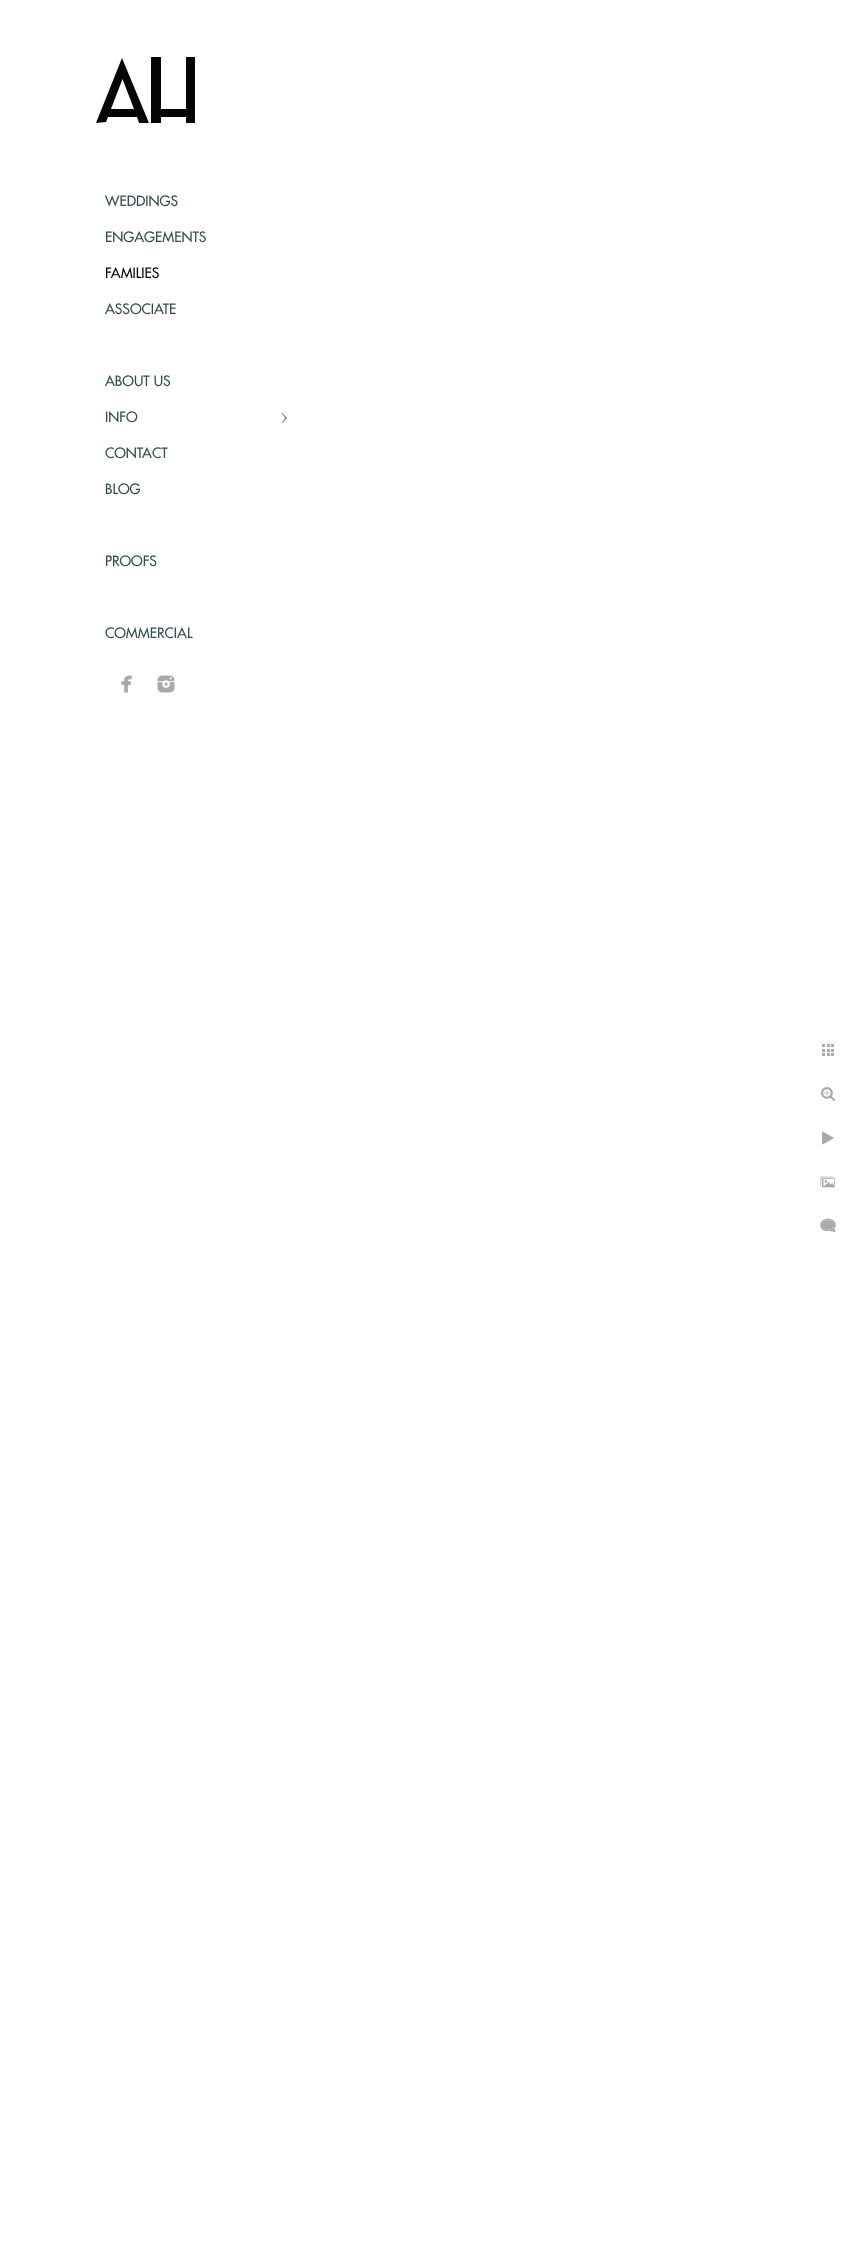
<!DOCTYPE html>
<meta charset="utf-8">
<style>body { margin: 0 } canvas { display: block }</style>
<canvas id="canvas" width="855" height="2256"></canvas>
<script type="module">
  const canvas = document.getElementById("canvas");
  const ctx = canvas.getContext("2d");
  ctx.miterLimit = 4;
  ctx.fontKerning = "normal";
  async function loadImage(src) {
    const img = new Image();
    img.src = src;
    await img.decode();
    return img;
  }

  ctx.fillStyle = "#ffffff";
  ctx.fillRect(0, 0, 855, 2256);
  ctx.fillStyle = "#040404";
  ctx.beginPath();
  ctx.moveTo(96, 123);
  ctx.lineTo(122, 58);
  ctx.lineTo(149, 123);
  ctx.lineTo(139, 123);
  ctx.lineTo(137, 117);
  ctx.lineTo(108, 117);
  ctx.lineTo(106, 122);
  ctx.closePath();
  ctx.fill();
  ctx.beginPath();
  ctx.moveTo(151, 57);
  ctx.lineTo(161, 57);
  ctx.lineTo(161, 109);
  ctx.lineTo(186, 109);
  ctx.lineTo(186, 57);
  ctx.lineTo(195, 57);
  ctx.lineTo(195, 123);
  ctx.lineTo(186, 123);
  ctx.lineTo(186, 117);
  ctx.lineTo(161, 117);
  ctx.lineTo(161, 123);
  ctx.lineTo(151, 123);
  ctx.closePath();
  ctx.fill();
  ctx.fillStyle = "#ffffff";
  ctx.beginPath();
  ctx.moveTo(122.5, 79);
  ctx.lineTo(134, 109);
  ctx.lineTo(111, 109);
  ctx.closePath();
  ctx.fill();
  ctx.font = "14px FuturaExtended";
  ctx.fillStyle = "#2f4f4f";
  ctx.fillText("WEDDINGS", 105, 206);
  ctx.fillText("ENGAGEMENTS", 105, 242);
  ctx.fillStyle = "#000000";
  ctx.fillText("FAMILIES", 105, 278);
  ctx.fillStyle = "#2f4f4f";
  ctx.fillText("ASSOCIATE", 105, 314);
  ctx.fillText("ABOUT US", 105, 386);
  ctx.fillText("INFO", 105, 422);
  ctx.drawImage(await loadImage("img1.png"), 281, 412, 6, 12);
  ctx.fillText("CONTACT", 105, 458);
  ctx.fillText("BLOG", 105, 494);
  ctx.fillText("PROOFS", 105, 566);
  ctx.fillText("COMMERCIAL", 105, 638);
  ctx.drawImage(await loadImage("img2.png"), 121, 675, 11, 18);
  ctx.drawImage(await loadImage("img3.png"), 157, 675, 18, 18);
  ctx.drawImage(await loadImage("img4.png"), 822, 1044, 12, 12);
  ctx.drawImage(await loadImage("img5.png"), 821, 1087, 14, 14);
  ctx.drawImage(await loadImage("img6.png"), 822, 1131, 12, 14);
  ctx.drawImage(await loadImage("img7.png"), 820, 1176, 15, 12);
  ctx.drawImage(await loadImage("img8.png"), 820, 1218, 16, 15);
</script>
